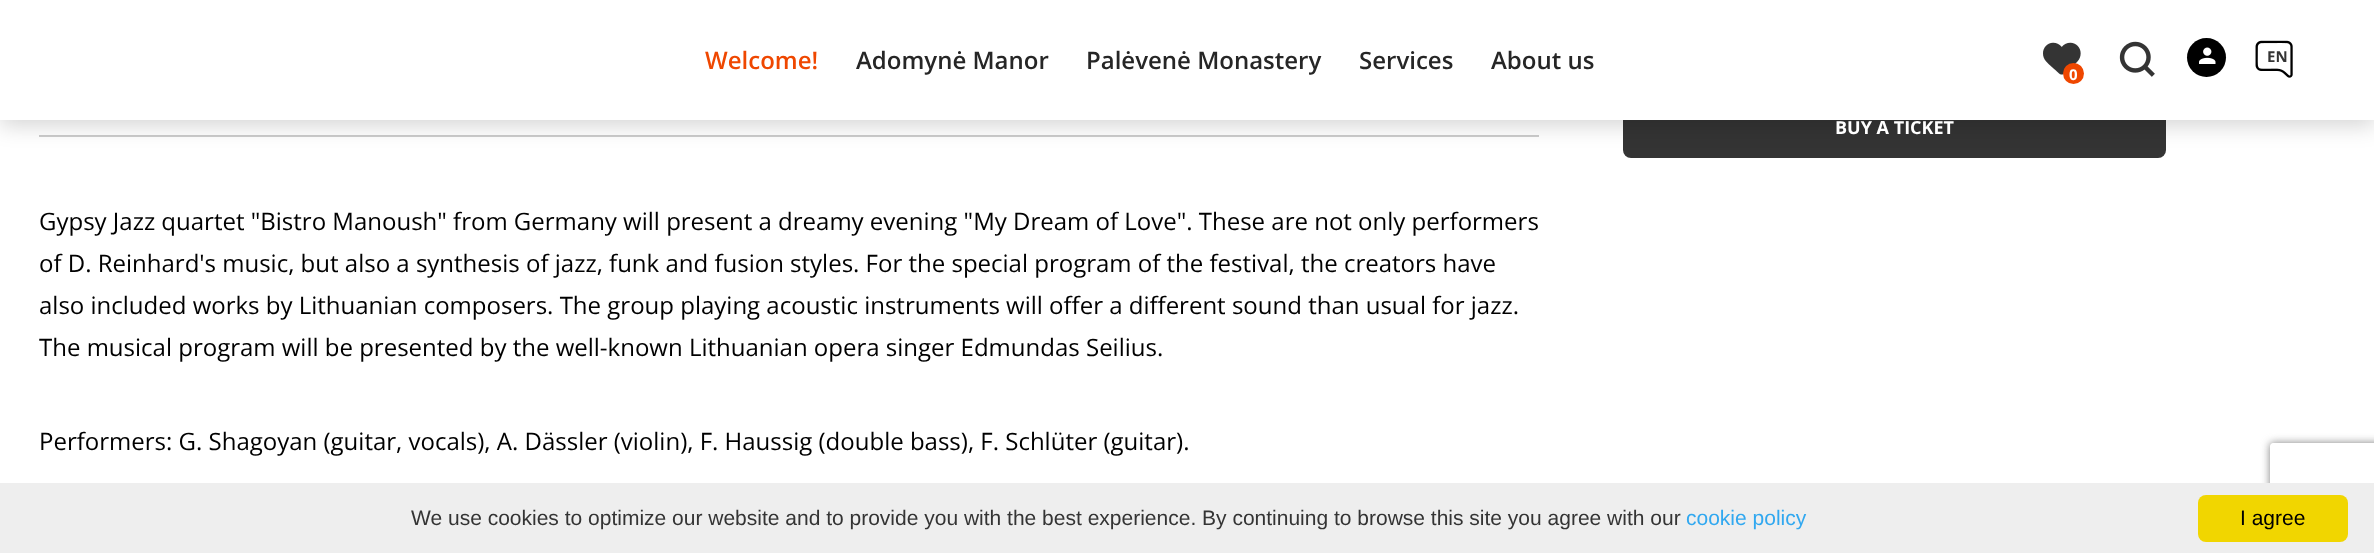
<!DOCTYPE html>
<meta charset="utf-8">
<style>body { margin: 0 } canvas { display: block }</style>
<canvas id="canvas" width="2374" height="553"></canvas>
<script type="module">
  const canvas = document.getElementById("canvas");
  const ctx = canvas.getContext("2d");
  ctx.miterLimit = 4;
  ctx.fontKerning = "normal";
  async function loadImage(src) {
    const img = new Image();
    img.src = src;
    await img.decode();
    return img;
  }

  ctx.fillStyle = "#ffffff";
  ctx.fillRect(0, 0, 2374, 553);
  ctx.fillStyle = "#343434";
  ctx.beginPath();
  ctx.roundRect(1623, 98, 543, 60, 8);
  ctx.fill();
  ctx.fillStyle = "#cccccc";
  ctx.fillRect(39, 135, 1500, 2);
  ctx.fillStyle = "rgba(0, 0, 0, 0.16)";
  ctx.filter = "blur(10.5px)";
  ctx.beginPath();
  ctx.rect(0, 6, 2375, 120);
  ctx.fill();
  ctx.filter = "none";
  ctx.fillStyle = "#ffffff";
  ctx.fillRect(0, 0, 2374, 120);
  ctx.font = "600 24px Open Sans";
  ctx.fillStyle = "#ef4700";
  ctx.fillText("Welcome!", 705, 69);
  ctx.fillStyle = "#262626";
  ctx.fillText("Adomynė Manor", 856, 69);
  ctx.fillText("Palėvenė Monastery", 1086, 69);
  ctx.fillText("Services", 1359, 69);
  ctx.fillText("About us", 1491, 69);
  ctx.drawImage(await loadImage("img1.png"), 2119, 41, 36, 36);
  ctx.fillStyle = "#000000";
  ctx.beginPath();
  ctx.arc(2206.5, 57.5, 19.5, 0, Math.PI * 2);
  ctx.fill();
  ctx.drawImage(await loadImage("img2.png"), 2199, 47, 17, 17);
  ctx.font = "bold 15px Open Sans";
  ctx.fillStyle = "#343434";
  ctx.fillText("EN", 2267, 62);
  ctx.drawImage(await loadImage("img3.png"), 2255, 40, 38, 38);
  ctx.drawImage(await loadImage("img4.png"), 2043, 42, 38, 33);
  ctx.fillStyle = "#ef4700";
  ctx.beginPath();
  ctx.arc(2073.5, 73.5, 10.5, 0, Math.PI * 2);
  ctx.fill();
  ctx.fillStyle = "#ffffff";
  ctx.fillText("0", 2069, 80);
  ctx.font = "bold 18px Open Sans";
  ctx.fillText("BUY A TICKET", 1835, 134);
  ctx.font = "24px Open Sans";
  ctx.fillStyle = "#000000";
  ctx.fillText("Gypsy Jazz quartet \"Bistro Manoush\" from Germany will present a dreamy evening \"My Dream of Love\". These are not only performers", 39, 230);
  ctx.fillText("of D. Reinhard's music, but also a synthesis of jazz, funk and fusion styles. For the special program of the festival, the creators have", 39, 272);
  ctx.fillText("also included works by Lithuanian composers. The group playing acoustic instruments will offer a different sound than usual for jazz.", 39, 314);
  ctx.fillText("The musical program will be presented by the well-known Lithuanian opera singer Edmundas Seilius.", 39, 356);
  ctx.fillText("Performers: G. Shagoyan (guitar, vocals), A. Dässler (violin), F. Haussig (double bass), F. Schlüter (guitar).", 39, 450);
  ctx.save();
  ctx.beginPath();
  ctx.moveTo(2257, 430);
  ctx.lineTo(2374, 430);
  ctx.lineTo(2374, 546);
  ctx.lineTo(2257, 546);
  ctx.closePath();
  ctx.moveTo(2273, 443);
  ctx.lineTo(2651, 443);
  ctx.bezierCurveTo(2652.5, 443, 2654, 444.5, 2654, 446);
  ctx.lineTo(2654, 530);
  ctx.bezierCurveTo(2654, 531.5, 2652.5, 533, 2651, 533);
  ctx.lineTo(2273, 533);
  ctx.bezierCurveTo(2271.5, 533, 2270, 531.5, 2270, 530);
  ctx.lineTo(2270, 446);
  ctx.bezierCurveTo(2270, 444.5, 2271.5, 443, 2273, 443);
  ctx.closePath();
  ctx.clip("evenodd");
  ctx.fillStyle = "#808080";
  ctx.filter = "blur(4px)";
  ctx.beginPath();
  ctx.roundRect(2270, 443, 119, 90, 3);
  ctx.fill();
  ctx.filter = "none";
  ctx.restore();
  ctx.fillStyle = "#eeeeee";
  ctx.fillRect(0, 483, 2374, 70);
  ctx.font = "21px Liberation Sans";
  ctx.fillStyle = "#343434";
  ctx.fillText("We use cookies to optimize our website and to provide you with the best experience. By continuing to browse this site you agree with our", 411, 525);
  ctx.fillStyle = "#31a8f0";
  ctx.fillText("cookie policy", 1686, 525);
  ctx.fillStyle = "#f1d600";
  ctx.beginPath();
  ctx.roundRect(2198, 495, 150, 47, 8);
  ctx.fill();
  ctx.fillStyle = "#000000";
  ctx.fillText("I agree", 2240, 525);
</script>
